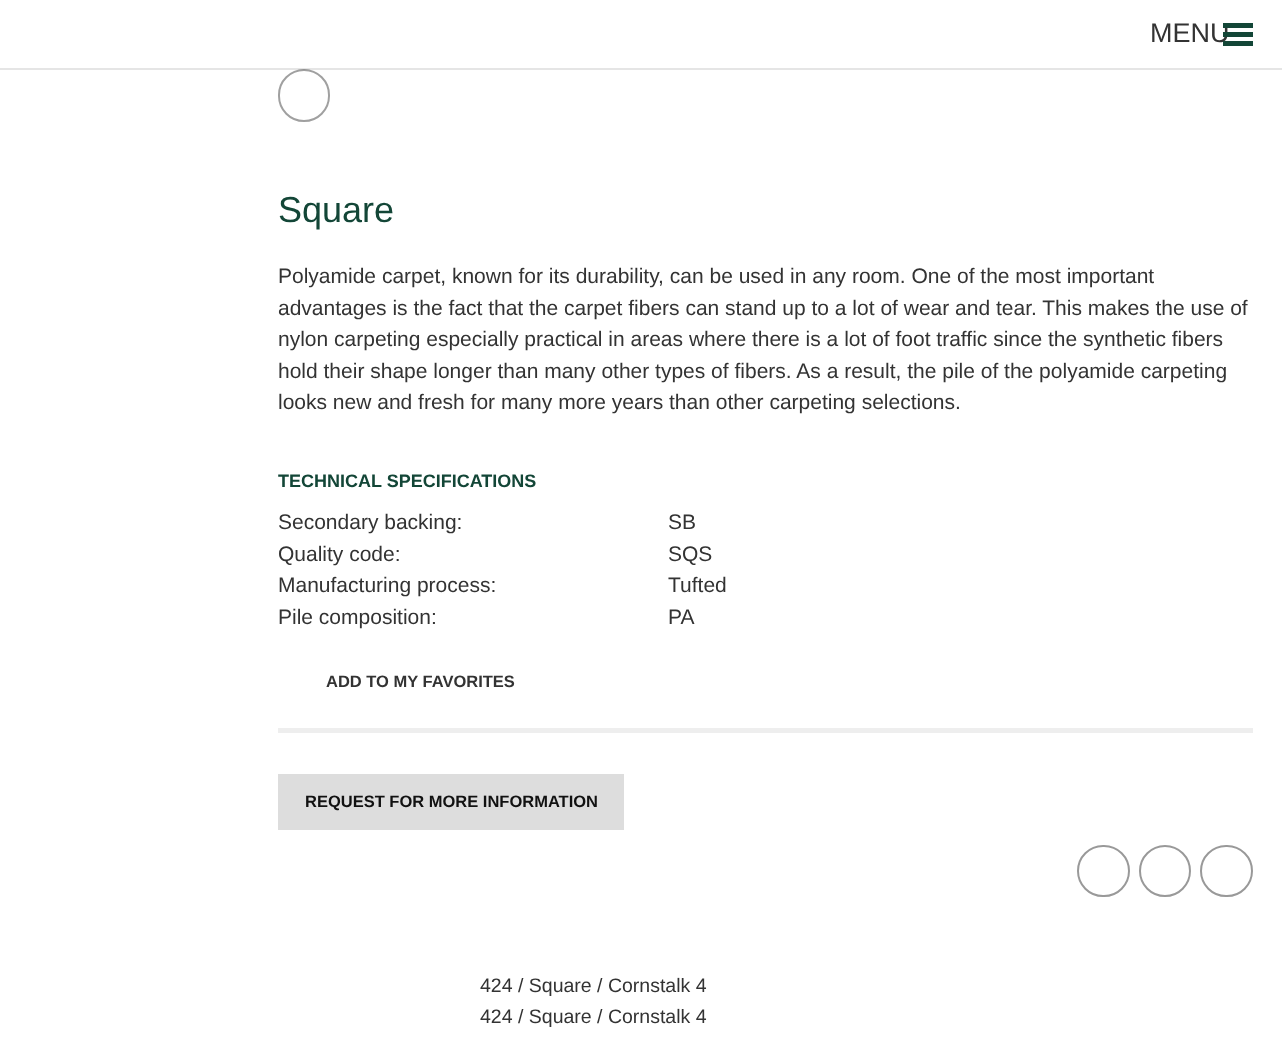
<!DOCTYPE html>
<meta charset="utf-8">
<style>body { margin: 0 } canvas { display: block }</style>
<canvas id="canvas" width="1282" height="1051"></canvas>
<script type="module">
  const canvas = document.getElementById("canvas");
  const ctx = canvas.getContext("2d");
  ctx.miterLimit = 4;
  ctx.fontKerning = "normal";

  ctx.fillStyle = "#ffffff";
  ctx.fillRect(0, 0, 1282, 1051);
  ctx.beginPath();
  ctx.roundRect(279, 70, 50, 51, 25);
  ctx.strokeStyle = "#a0a0a0";
  ctx.lineWidth = 2;
  ctx.stroke();
  ctx.fillStyle = "rgba(0, 0, 0, 0.1)";
  ctx.fillRect(0, 68, 1282, 2);
  ctx.font = "27px Liberation Sans";
  ctx.fillStyle = "#333333";
  ctx.fillText("MENU", 1150, 42);
  ctx.fillStyle = "#134637";
  ctx.fillRect(1223, 32, 30, 5);
  ctx.fillRect(1223, 23, 30, 5);
  ctx.fillRect(1223, 41, 30, 5);
  ctx.font = "36px Liberation Sans";
  ctx.fillText("Square", 278, 222);
  ctx.font = "21px Liberation Sans";
  ctx.fillStyle = "#333333";
  ctx.fillText("Polyamide carpet, known for its durability, can be used in any room. One of the most important", 278, 283);
  ctx.fillText("advantages is the fact that the carpet fibers can stand up to a lot of wear and tear. This makes the use of", 278, 315);
  ctx.fillText("nylon carpeting especially practical in areas where there is a lot of foot traffic since the synthetic fibers", 278, 346);
  ctx.fillText("hold their shape longer than many other types of fibers. As a result, the pile of the polyamide carpeting", 278, 378);
  ctx.fillText("looks new and fresh for many more years than other carpeting selections.", 278, 409);
  ctx.font = "bold 18px Liberation Sans";
  ctx.fillStyle = "#134637";
  ctx.fillText("TECHNICAL SPECIFICATIONS", 278, 487);
  ctx.font = "21px Liberation Sans";
  ctx.fillStyle = "#333333";
  ctx.fillText("Secondary backing:", 278, 529);
  ctx.fillText("SB", 668, 529);
  ctx.fillText("Quality code:", 278, 561);
  ctx.fillText("SQS", 668, 561);
  ctx.fillText("Manufacturing process:", 278, 592);
  ctx.fillText("Tufted", 668, 592);
  ctx.fillText("Pile composition:", 278, 624);
  ctx.fillText("PA", 668, 624);
  ctx.font = "bold 16.5px Liberation Sans";
  ctx.fillText("ADD TO MY FAVORITES", 326, 687);
  ctx.fillStyle = "#eeeeee";
  ctx.fillRect(278, 728, 975, 5);
  ctx.fillStyle = "#dddddd";
  ctx.fillRect(278, 774, 346, 56);
  ctx.fillStyle = "#111111";
  ctx.fillText("REQUEST FOR MORE INFORMATION", 305, 807);
  ctx.beginPath();
  ctx.roundRect(1078, 846, 51, 50, 25);
  ctx.strokeStyle = "#999999";
  ctx.stroke();
  ctx.beginPath();
  ctx.arc(1165, 871, 25, 0, Math.PI * 2);
  ctx.stroke();
  ctx.beginPath();
  ctx.roundRect(1201, 846, 51, 50, 25);
  ctx.stroke();
  ctx.font = "19.5px Liberation Sans";
  ctx.fillStyle = "#333333";
  ctx.fillText("424 / Square / Cornstalk 4", 480, 992);
  ctx.fillText("424 / Square / Cornstalk 4", 480, 1023);
</script>
